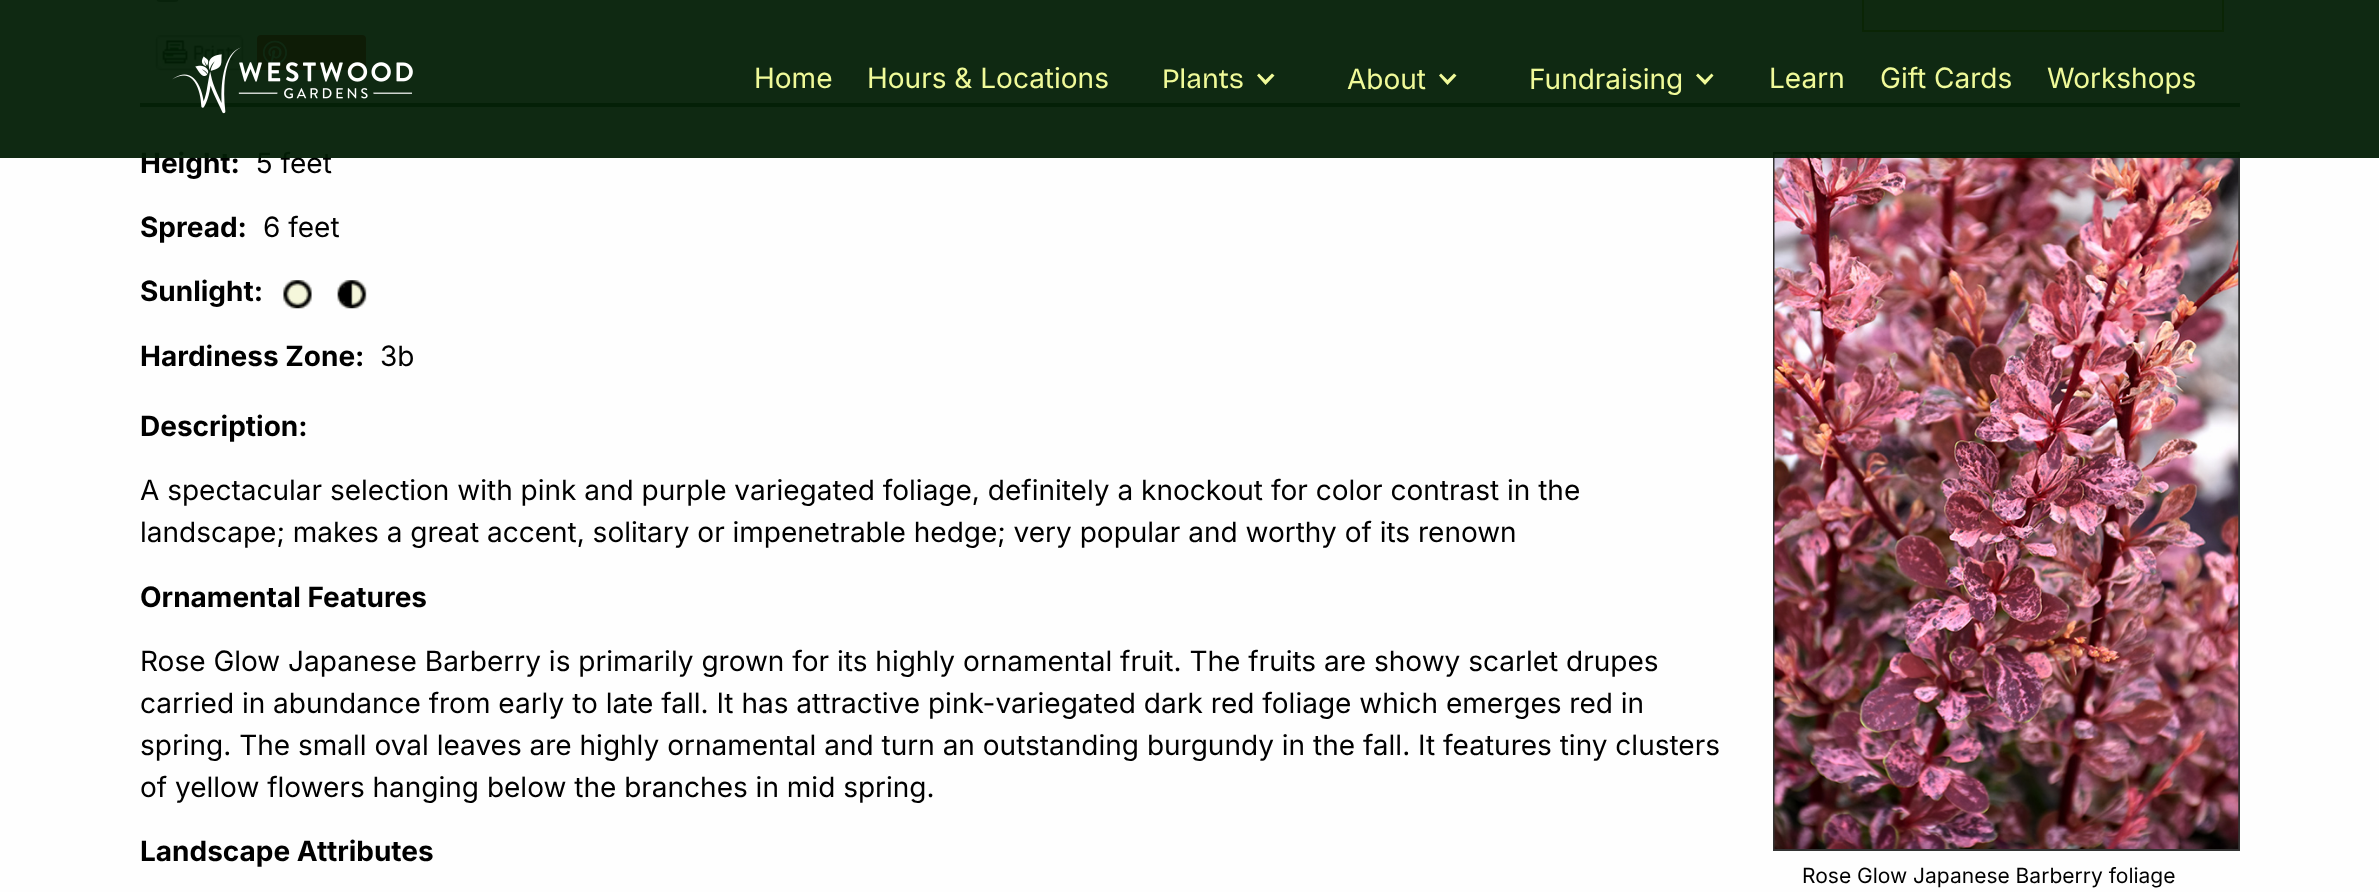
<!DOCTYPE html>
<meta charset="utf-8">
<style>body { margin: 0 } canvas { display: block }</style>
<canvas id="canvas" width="2379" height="892"></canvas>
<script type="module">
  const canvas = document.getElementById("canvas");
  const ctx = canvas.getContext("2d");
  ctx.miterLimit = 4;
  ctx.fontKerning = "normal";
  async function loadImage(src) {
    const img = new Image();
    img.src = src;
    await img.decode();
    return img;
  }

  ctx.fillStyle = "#fefefe";
  ctx.fillRect(0, 0, 2379, 892);
  ctx.beginPath();
  ctx.roundRect(157, -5, 21, 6, 3);
  ctx.strokeStyle = "#767676";
  ctx.lineWidth = 2;
  ctx.stroke();
  ctx.fillStyle = "#f7fccc";
  ctx.beginPath();
  ctx.rect(1863, -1, 360, 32);
  ctx.fill();
  ctx.strokeStyle = "#94a512";
  ctx.stroke();
  ctx.drawImage(await loadImage("img2.png"), 155, 35, 89, 36);
  ctx.fillStyle = "#e60023";
  ctx.beginPath();
  ctx.roundRect(257, 35, 109, 35, 4);
  ctx.fill();
  ctx.drawImage(await loadImage("img3.png"), 263, 40, 24, 24);
  ctx.fillStyle = "#335133";
  ctx.fillRect(140, 103, 2100, 4);
  ctx.font = "bold 28px Inter";
  ctx.fillStyle = "#000000";
  ctx.fillText("Height:", 140, 173);
  ctx.font = "28px Inter";
  ctx.fillText("5 feet", 256, 173);
  ctx.strokeStyle = "#333333";
  ctx.strokeRect(1774, 153, 465, 697);
  ctx.drawImage(await loadImage("img6.png"), 1774, 154, 465, 695);
  ctx.fillStyle = "rgba(2, 30, 5, 0.95)";
  ctx.fillRect(0, 0, 2379, 158);
  ctx.drawImage(await loadImage("img1.png"), 172, 47, 241, 67);
  ctx.fillStyle = "#f0fa99";
  ctx.fillText("Home", 754, 88);
  ctx.fillText("Hours & Locations", 867, 88);
  ctx.font = "28px Bricolage Grotesque";
  ctx.fillText("Plants", 1162, 88);
  ctx.beginPath();
  ctx.moveTo(1272, 73.5);
  ctx.lineTo(1265.5, 80);
  ctx.lineTo(1259, 73.5);
  ctx.lineTo(1257, 75.5);
  ctx.lineTo(1265.5, 85);
  ctx.lineTo(1274.5, 75.5);
  ctx.closePath();
  ctx.fill();
  ctx.font = "28px Inter";
  ctx.fillText("About", 1347, 89);
  ctx.beginPath();
  ctx.moveTo(1454, 73.5);
  ctx.lineTo(1447.5, 80);
  ctx.lineTo(1441, 73.5);
  ctx.lineTo(1439, 75.5);
  ctx.lineTo(1447.5, 85);
  ctx.lineTo(1456.5, 75.5);
  ctx.closePath();
  ctx.fill();
  ctx.fillText("Fundraising", 1529, 89);
  ctx.beginPath();
  ctx.moveTo(1711.5, 73.5);
  ctx.lineTo(1705, 80);
  ctx.lineTo(1698, 73.5);
  ctx.lineTo(1696, 75.5);
  ctx.lineTo(1705, 85);
  ctx.lineTo(1713.5, 75.5);
  ctx.closePath();
  ctx.fill();
  ctx.fillText("Learn", 1769, 88);
  ctx.fillText("Gift Cards", 1880, 88);
  ctx.fillText("Workshops", 2047, 88);
  ctx.font = "bold 28px Inter";
  ctx.fillStyle = "#000000";
  ctx.fillText("Spread:", 140, 237);
  ctx.font = "28px Inter";
  ctx.fillText("6 feet", 263, 237);
  ctx.font = "bold 28px Inter";
  ctx.fillText("Sunlight:", 140, 301);
  ctx.drawImage(await loadImage("img4.png"), 283, 280, 29, 29);
  ctx.drawImage(await loadImage("img5.png"), 337, 280, 30, 29);
  ctx.fillText("Hardiness Zone:", 140, 366);
  ctx.font = "28px Inter";
  ctx.fillText("3b", 380, 366);
  ctx.font = "bold 28px Inter";
  ctx.fillText("Description:", 140, 436);
  ctx.font = "28px Inter";
  ctx.fillText("A spectacular selection with pink and purple variegated foliage, definitely a knockout for color contrast in the", 140, 500);
  ctx.fillText("landscape; makes a great accent, solitary or impenetrable hedge; very popular and worthy of its renown", 140, 542);
  ctx.font = "bold 28px Inter";
  ctx.fillText("Ornamental Features", 140, 607);
  ctx.font = "28px Inter";
  ctx.fillText("Rose Glow Japanese Barberry is primarily grown for its highly ornamental fruit. The fruits are showy scarlet drupes", 140, 671);
  ctx.fillText("carried in abundance from early to late fall. It has attractive pink-variegated dark red foliage which emerges red in", 140, 713);
  ctx.fillText("spring. The small oval leaves are highly ornamental and turn an outstanding burgundy in the fall. It features tiny clusters", 140, 755);
  ctx.fillText("of yellow flowers hanging below the branches in mid spring.", 140, 797);
  ctx.font = "bold 28px Inter";
  ctx.fillText("Landscape Attributes", 140, 861);
  ctx.font = "21px Inter";
  ctx.fillText("Rose Glow Japanese Barberry foliage", 1802, 883);
</script>
